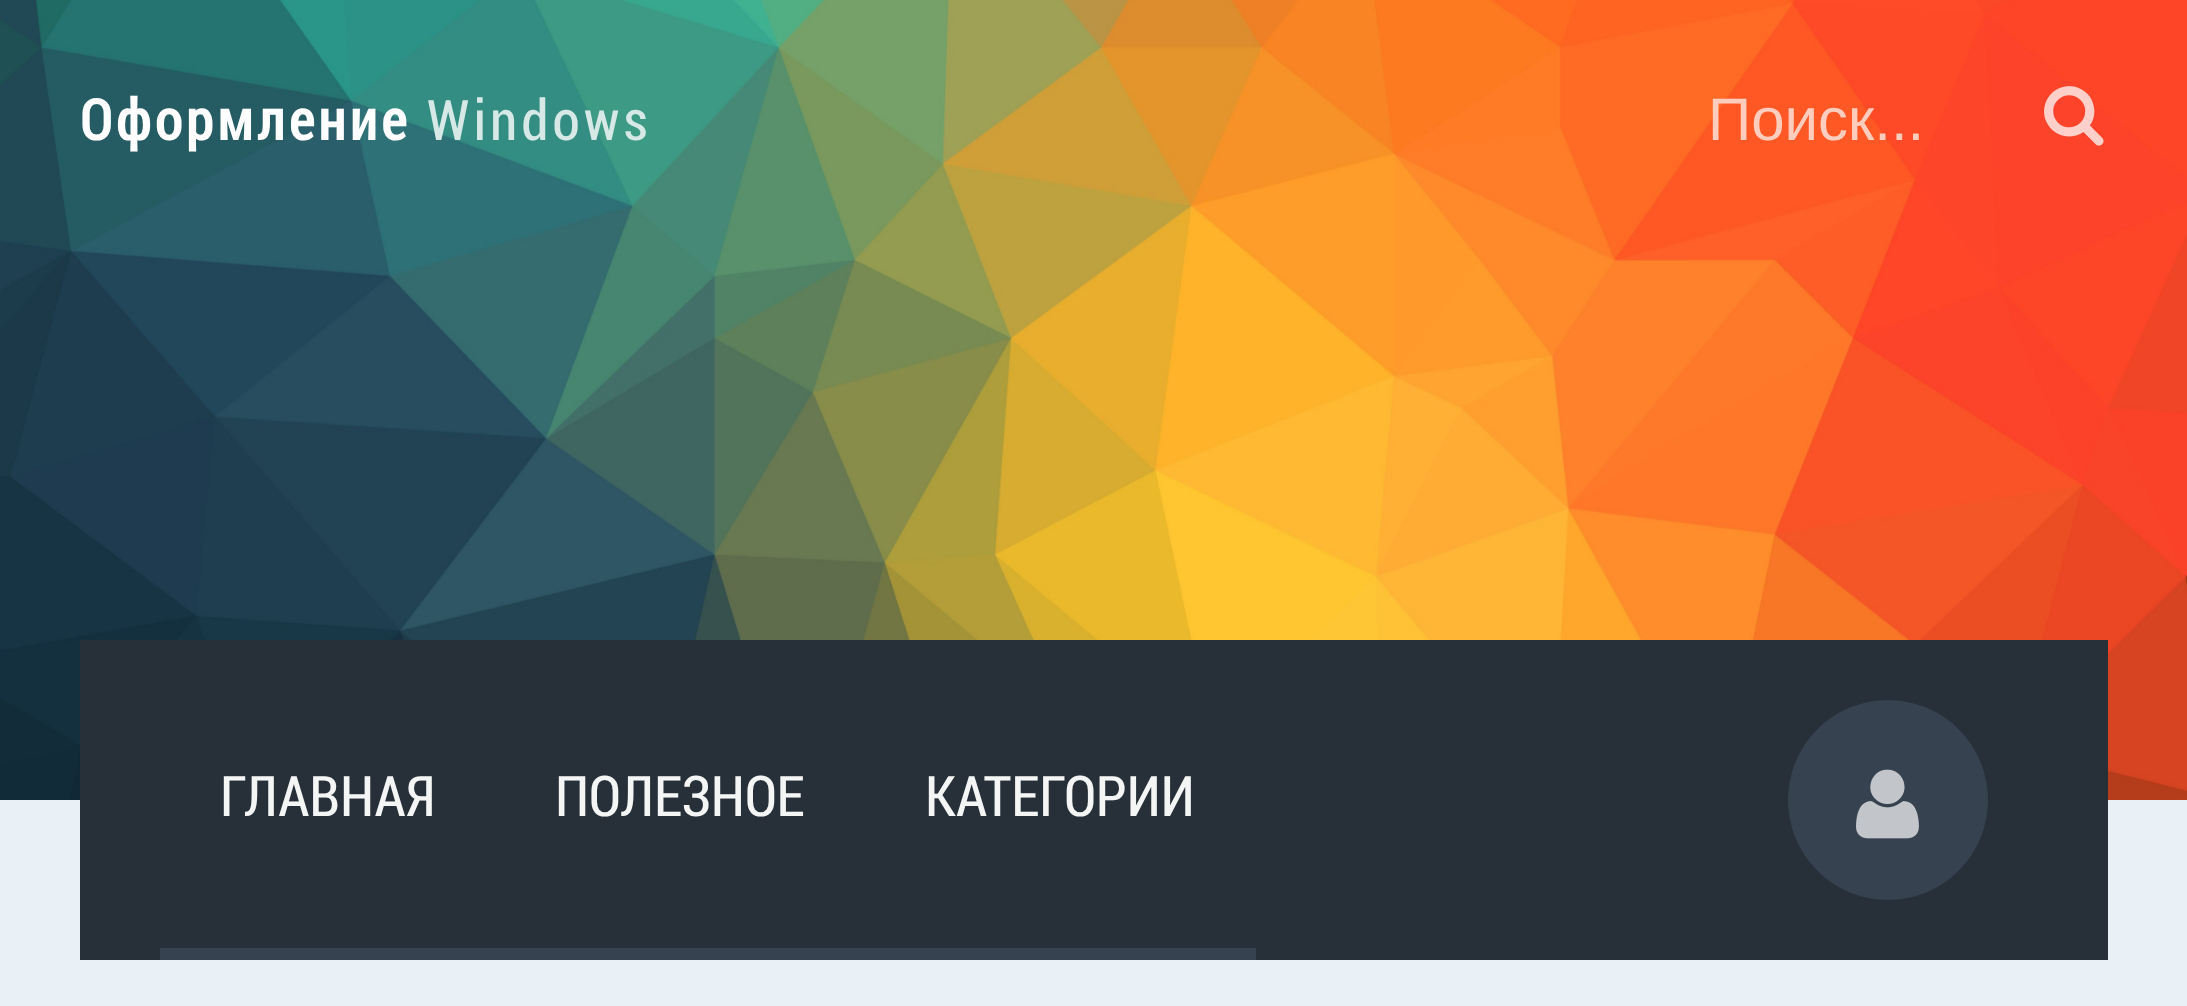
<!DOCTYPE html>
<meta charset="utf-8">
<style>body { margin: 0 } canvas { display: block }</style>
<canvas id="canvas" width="2187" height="1006"></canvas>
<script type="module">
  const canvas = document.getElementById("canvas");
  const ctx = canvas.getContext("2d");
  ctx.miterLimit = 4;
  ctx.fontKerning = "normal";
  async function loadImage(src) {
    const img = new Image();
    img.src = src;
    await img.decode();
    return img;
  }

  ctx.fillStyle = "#e9f0f6";
  ctx.fillRect(0, 0, 2187, 1006);
  ctx.drawImage(await loadImage("img1.png"), 0, 0, 2187, 800);
  ctx.letterSpacing = "4px";
  ctx.font = "bold 56px Roboto Condensed";
  ctx.fillStyle = "#ffffff";
  ctx.fillText("Оформление", 80, 140);
  ctx.font = "56px Roboto Condensed";
  ctx.fillStyle = "#d7e9e6";
  ctx.fillText("Windows", 427, 140);
  ctx.letterSpacing = "0px";
  ctx.font = "60px Liberation Sans";
  ctx.fillStyle = "#ffcdbd";
  ctx.fillText("Поиск...", 1708, 140);
  ctx.drawImage(await loadImage("img2.png"), 2044, 86, 60, 60);
  ctx.fillStyle = "#273039";
  ctx.fillRect(80, 640, 2028, 320);
  ctx.fillStyle = "#364250";
  ctx.fillRect(160, 948, 1096, 12);
  ctx.font = "56px Roboto Condensed";
  ctx.fillStyle = "#f4f5f5";
  ctx.fillText("ГЛАВНАЯ", 220, 816);
  ctx.fillText("ПОЛЕЗНОЕ", 555, 816);
  ctx.fillText("КАТЕГОРИИ", 925, 816);
  ctx.fillStyle = "#364250";
  ctx.beginPath();
  ctx.arc(1888, 800, 100, 0, Math.PI * 2);
  ctx.fill();
  ctx.drawImage(await loadImage("img3.png"), 1856, 769, 63, 70);
</script>
